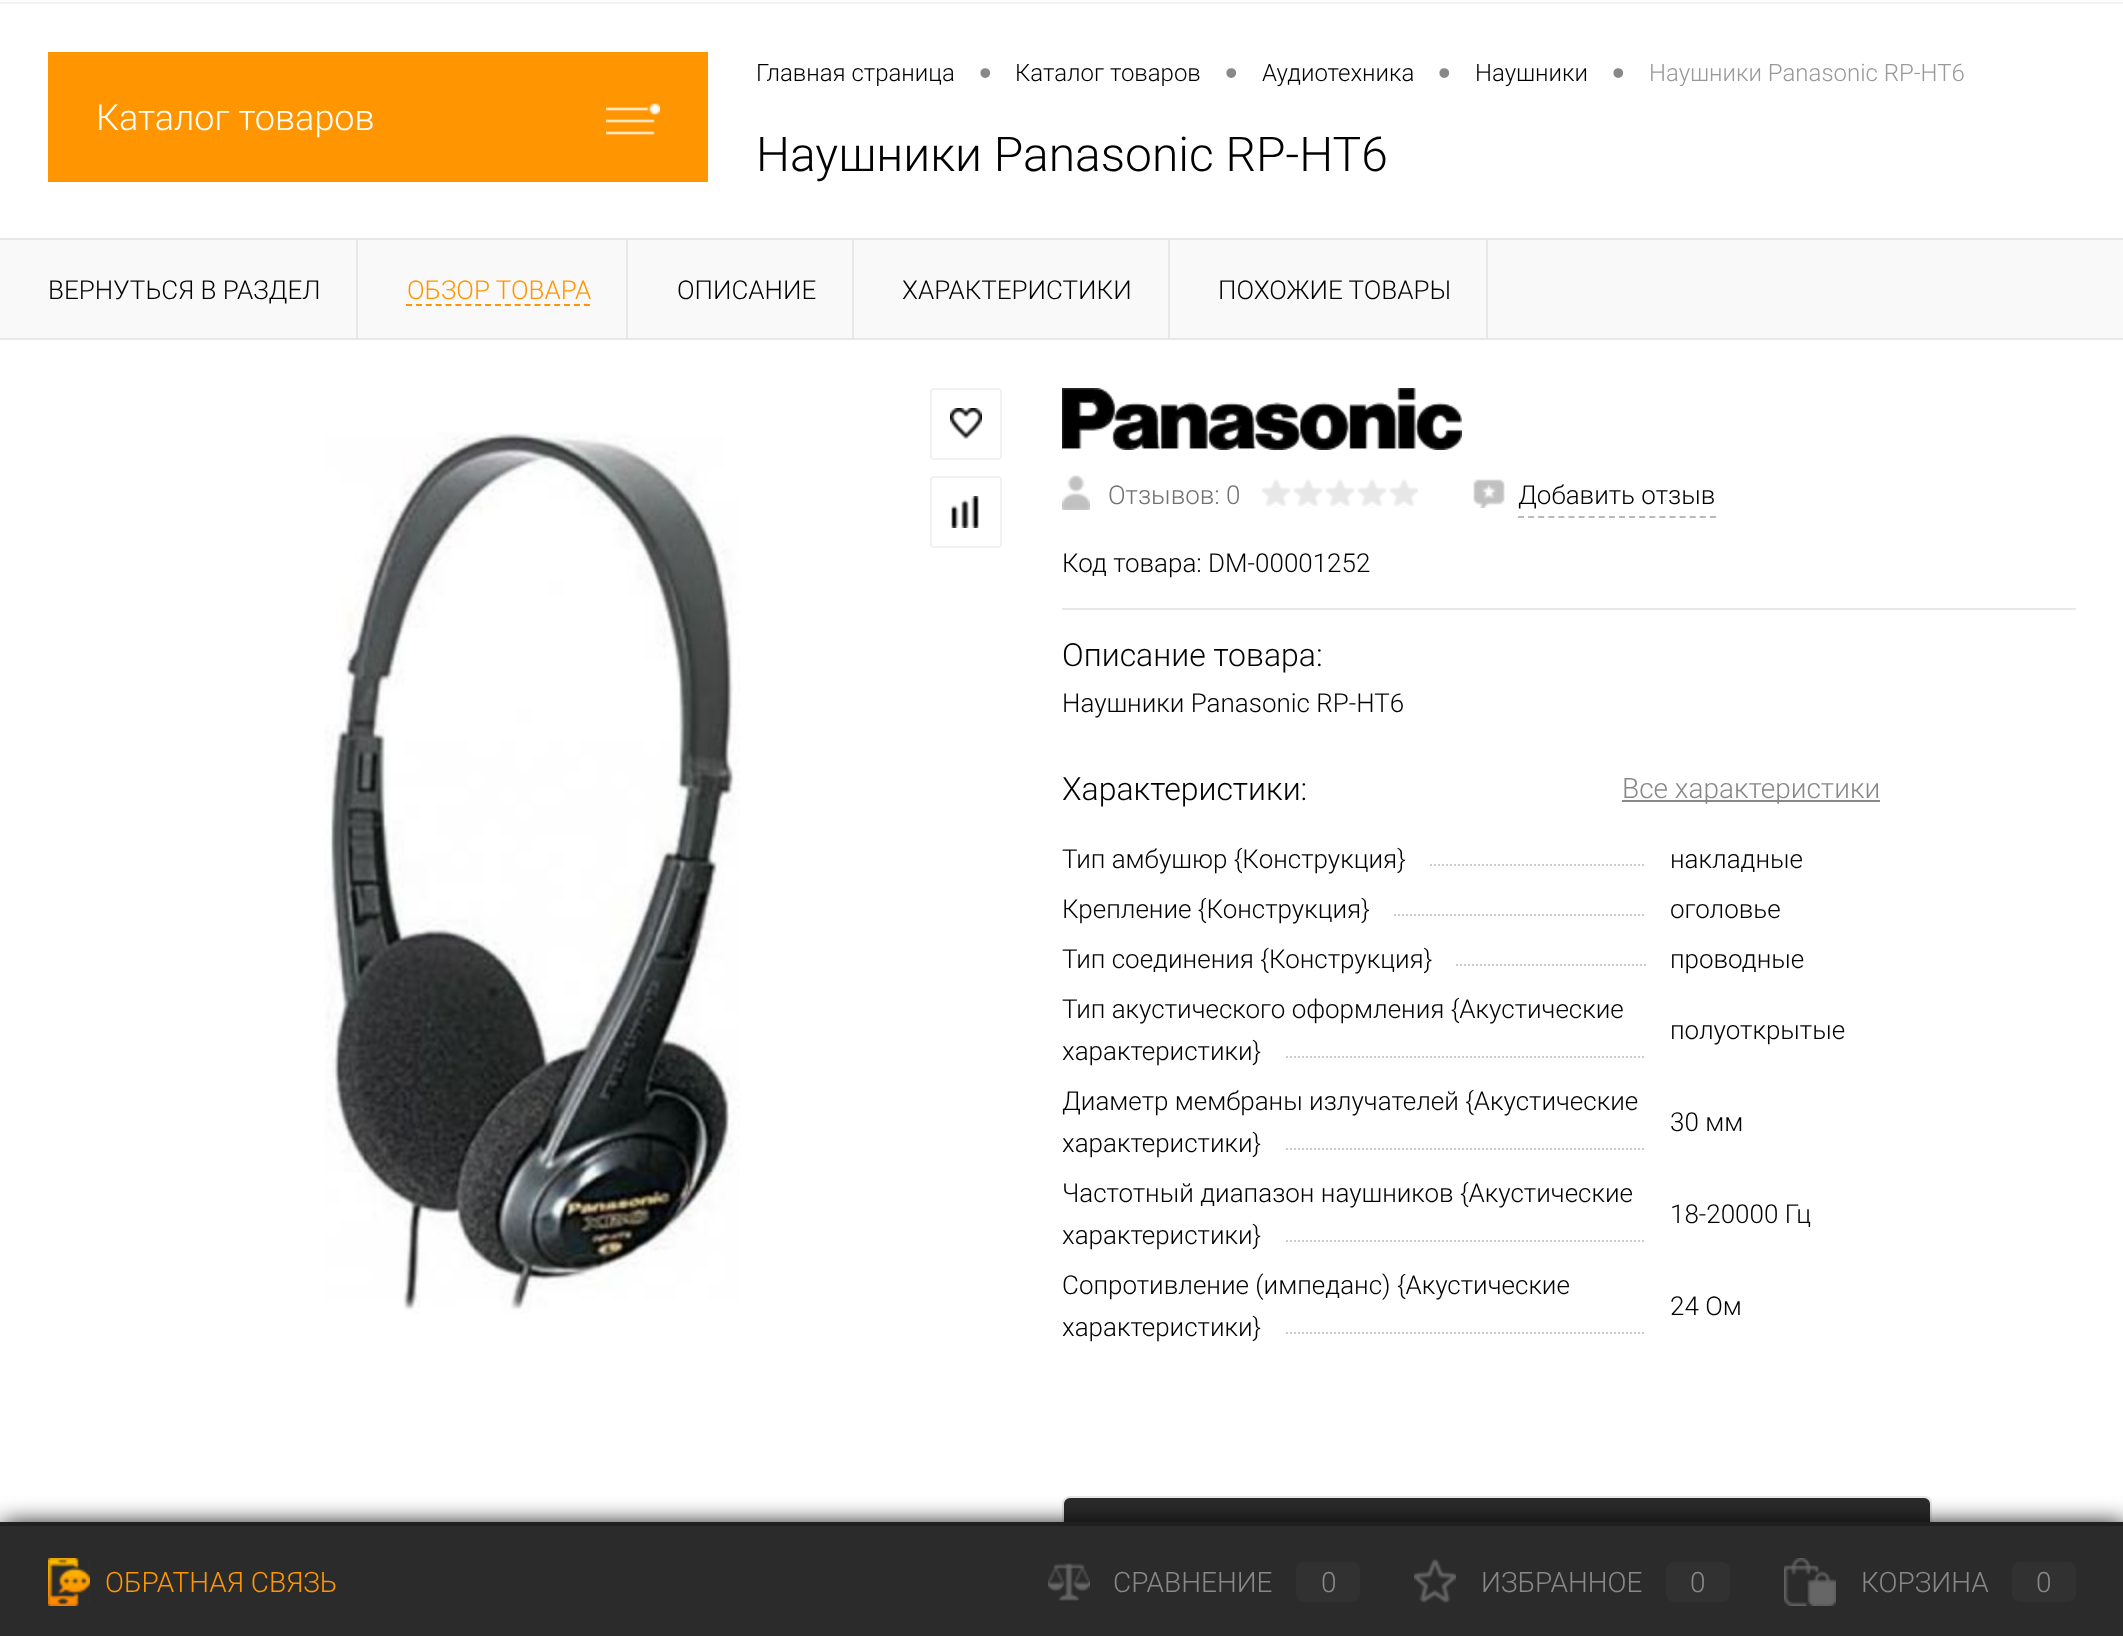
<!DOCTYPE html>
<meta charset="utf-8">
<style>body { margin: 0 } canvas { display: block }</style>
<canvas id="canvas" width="2123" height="1636"></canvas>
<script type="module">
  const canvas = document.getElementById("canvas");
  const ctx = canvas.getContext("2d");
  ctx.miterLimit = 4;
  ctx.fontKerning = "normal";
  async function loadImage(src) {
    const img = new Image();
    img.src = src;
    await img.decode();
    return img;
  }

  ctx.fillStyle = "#ffffff";
  ctx.fillRect(0, 0, 2123, 1636);
  ctx.fillStyle = "#f3f3f3";
  ctx.fillRect(0, 2, 2123, 2);
  ctx.fillStyle = "#ff9601";
  ctx.fillRect(48, 52, 660, 130);
  ctx.font = "300 36px Roboto";
  ctx.fillStyle = "#ffffff";
  ctx.fillText("Каталог товаров", 96, 130);
  ctx.drawImage(await loadImage("img1.png"), 606, 103, 54, 32);
  ctx.font = "300 24px Roboto";
  ctx.fillStyle = "#000000";
  ctx.fillText("Главная страница", 756, 81);
  ctx.font = "36px Liberation Sans";
  ctx.fillStyle = "#888888";
  ctx.fillText("•", 979, 85);
  ctx.font = "300 24px Roboto";
  ctx.fillStyle = "#000000";
  ctx.fillText("Каталог товаров", 1015, 81);
  ctx.font = "36px Liberation Sans";
  ctx.fillStyle = "#888888";
  ctx.fillText("•", 1225, 85);
  ctx.font = "300 24px Roboto";
  ctx.fillStyle = "#000000";
  ctx.fillText("Аудиотехника", 1262, 81);
  ctx.font = "36px Liberation Sans";
  ctx.fillStyle = "#888888";
  ctx.fillText("•", 1438, 85);
  ctx.font = "300 24px Roboto";
  ctx.fillStyle = "#000000";
  ctx.fillText("Наушники", 1475, 81);
  ctx.font = "36px Liberation Sans";
  ctx.fillStyle = "#888888";
  ctx.fillText("•", 1612, 85);
  ctx.font = "300 24px Roboto";
  ctx.fillStyle = "#999999";
  ctx.fillText("Наушники Panasonic RP-HT6", 1649, 81);
  ctx.font = "300 48px Roboto";
  ctx.fillStyle = "#000000";
  ctx.fillText("Наушники Panasonic RP-HT6", 756, 171);
  ctx.fillStyle = "#e7e8ea";
  ctx.fillRect(0, 238, 2123, 2);
  ctx.fillStyle = "#f9f9f9";
  ctx.fillRect(0, 240, 2123, 98);
  ctx.fillStyle = "#e7e8ea";
  ctx.fillRect(0, 338, 2123, 2);
  ctx.fillRect(356, 240, 2, 98);
  ctx.font = "300 26px Roboto";
  ctx.fillStyle = "#000000";
  ctx.fillText("ВЕРНУТЬСЯ В РАЗДЕЛ", 48, 299);
  ctx.fillStyle = "#e7e8ea";
  ctx.fillRect(626, 240, 2, 98);
  ctx.fillStyle = "#ff9601";
  ctx.fillText("ОБЗОР ТОВАРА", 407, 299);
  ctx.beginPath();
  ctx.moveTo(406, 305);
  ctx.lineTo(590, 305);
  ctx.strokeStyle = "#ff9601";
  ctx.lineWidth = 2;
  ctx.setLineDash([6, 3.88]);
  ctx.stroke();
  ctx.fillStyle = "#e7e8ea";
  ctx.fillRect(852, 240, 2, 98);
  ctx.fillStyle = "#000000";
  ctx.fillText("ОПИСАНИЕ", 677, 299);
  ctx.fillStyle = "#e7e8ea";
  ctx.fillRect(1168, 240, 2, 98);
  ctx.fillStyle = "#000000";
  ctx.fillText("ХАРАКТЕРИСТИКИ", 902, 299);
  ctx.fillStyle = "#e7e8ea";
  ctx.fillRect(1486, 240, 2, 98);
  ctx.fillStyle = "#000000";
  ctx.fillText("ПОХОЖИЕ ТОВАРЫ", 1218, 299);
  ctx.drawImage(await loadImage("img2.png"), 324, 432, 416, 882);
  ctx.beginPath();
  ctx.roundRect(931, 389, 70, 70, 3);
  ctx.strokeStyle = "#f1f1f1";
  ctx.setLineDash([]);
  ctx.stroke();
  ctx.drawImage(await loadImage("img3.png"), 950, 408, 32, 31);
  ctx.beginPath();
  ctx.roundRect(931, 477, 70, 70, 3);
  ctx.stroke();
  ctx.drawImage(await loadImage("img4.png"), 951, 496, 28, 32);
  ctx.drawImage(await loadImage("img5.png"), 1062, 388, 400, 62);
  ctx.fillStyle = "#e8e8e8";
  ctx.fillRect(1062, 608, 1014, 2);
  ctx.drawImage(await loadImage("img6.png"), 1062, 475, 28, 35);
  ctx.fillStyle = "#717171";
  ctx.fillText("Отзывов: 0", 1108, 504);
  ctx.drawImage(await loadImage("img7.png"), 1261, 479, 157, 29);
  ctx.drawImage(await loadImage("img8.png"), 1473, 479, 32, 29);
  ctx.beginPath();
  ctx.moveTo(1518, 517);
  ctx.lineTo(1716, 517);
  ctx.strokeStyle = "#b9b9b9";
  ctx.setLineDash([6, 4.1]);
  ctx.stroke();
  ctx.fillStyle = "#000000";
  ctx.fillText("Добавить отзыв", 1518, 504);
  ctx.fillText("Код товара: DM-00001252", 1062, 572);
  ctx.font = "300 32px Roboto";
  ctx.fillText("Описание товара:", 1062, 666);
  ctx.font = "300 26px Roboto";
  ctx.fillText("Наушники Panasonic RP-HT6", 1062, 712);
  ctx.font = "300 32px Roboto";
  ctx.fillText("Характеристики:", 1062, 800);
  ctx.fillStyle = "#888888";
  ctx.fillRect(1622, 800, 258, 2);
  ctx.font = "300 28px Roboto";
  ctx.fillText("Все характеристики", 1622, 798);
  ctx.font = "300 26px Roboto";
  ctx.fillStyle = "#000000";
  ctx.fillText("Тип амбушюр {Конструкция}", 1062, 868);
  ctx.save();
  ctx.beginPath();
  ctx.rect(1062, 834, 584, 50);
  ctx.clip();
  ctx.beginPath();
  ctx.moveTo(1430, 865);
  ctx.lineTo(2014, 865);
  ctx.strokeStyle = "#cccccc";
  ctx.setLineDash([2, 2]);
  ctx.stroke();
  ctx.restore();
  ctx.fillText("накладные", 1670, 868);
  ctx.fillText("Крепление {Конструкция}", 1062, 918);
  ctx.save();
  ctx.beginPath();
  ctx.rect(1062, 884, 584, 50);
  ctx.clip();
  ctx.beginPath();
  ctx.moveTo(1394, 915);
  ctx.lineTo(1978, 915);
  ctx.strokeStyle = "#cccccc";
  ctx.setLineDash([2, 2]);
  ctx.stroke();
  ctx.restore();
  ctx.fillText("оголовье", 1670, 918);
  ctx.fillText("Тип соединения {Конструкция}", 1062, 968);
  ctx.save();
  ctx.beginPath();
  ctx.rect(1062, 934, 584, 50);
  ctx.clip();
  ctx.beginPath();
  ctx.moveTo(1456, 965);
  ctx.lineTo(2040, 965);
  ctx.strokeStyle = "#cccccc";
  ctx.setLineDash([2, 2]);
  ctx.stroke();
  ctx.restore();
  ctx.fillText("проводные", 1670, 968);
  ctx.fillText("Тип акустического оформления {Акустические", 1062, 1018);
  ctx.fillText("характеристики}", 1062, 1060);
  ctx.save();
  ctx.beginPath();
  ctx.rect(1062, 984, 584, 92);
  ctx.clip();
  ctx.beginPath();
  ctx.moveTo(1286, 1057);
  ctx.lineTo(1870, 1057);
  ctx.strokeStyle = "#cccccc";
  ctx.setLineDash([2, 2]);
  ctx.stroke();
  ctx.restore();
  ctx.fillText("полуоткрытые", 1670, 1039);
  ctx.fillText("Диаметр мембраны излучателей {Акустические", 1062, 1110);
  ctx.fillText("характеристики}", 1062, 1152);
  ctx.save();
  ctx.beginPath();
  ctx.rect(1062, 1076, 584, 92);
  ctx.clip();
  ctx.beginPath();
  ctx.moveTo(1286, 1149);
  ctx.lineTo(1870, 1149);
  ctx.strokeStyle = "#cccccc";
  ctx.setLineDash([2, 2]);
  ctx.stroke();
  ctx.restore();
  ctx.fillText("30 мм", 1670, 1131);
  ctx.fillText("Частотный диапазон наушников {Акустические", 1062, 1202);
  ctx.fillText("характеристики}", 1062, 1244);
  ctx.save();
  ctx.beginPath();
  ctx.rect(1062, 1168, 584, 92);
  ctx.clip();
  ctx.beginPath();
  ctx.moveTo(1286, 1241);
  ctx.lineTo(1870, 1241);
  ctx.strokeStyle = "#cccccc";
  ctx.setLineDash([2, 2]);
  ctx.stroke();
  ctx.restore();
  ctx.fillText("18-20000 Гц", 1670, 1223);
  ctx.fillText("Сопротивление (импеданс) {Акустические", 1062, 1294);
  ctx.fillText("характеристики}", 1062, 1336);
  ctx.save();
  ctx.beginPath();
  ctx.rect(1062, 1260, 584, 92);
  ctx.clip();
  ctx.beginPath();
  ctx.moveTo(1286, 1333);
  ctx.lineTo(1870, 1333);
  ctx.strokeStyle = "#cccccc";
  ctx.setLineDash([2, 2]);
  ctx.stroke();
  ctx.restore();
  ctx.fillText("24 Ом", 1670, 1315);
  ctx.fillStyle = "#2b2b2b";
  ctx.beginPath();
  ctx.roundRect(1063, 1497, 868, 118, 7);
  ctx.fill();
  ctx.strokeStyle = "#e7e8ea";
  ctx.setLineDash([]);
  ctx.stroke();
  ctx.fillStyle = "#000000";
  ctx.filter = "blur(12px)";
  ctx.beginPath();
  ctx.rect(2, 1524, 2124, 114);
  ctx.fill();
  ctx.filter = "none";
  ctx.fillStyle = "#2b2b2b";
  ctx.fillRect(0, 1526, 2123, 110);
  ctx.fillStyle = "#202020";
  ctx.fillRect(0, 1522, 2123, 4);
  ctx.drawImage(await loadImage("img9.png"), 48, 1558, 42, 48);
  ctx.font = "300 28px Roboto";
  ctx.fillStyle = "#ff9601";
  ctx.fillText("ОБРАТНАЯ СВЯЗЬ", 105, 1592);
  ctx.drawImage(await loadImage("img10.png"), 1048, 1563, 42, 38);
  ctx.fillStyle = "#888888";
  ctx.fillText("СРАВНЕНИЕ", 1113, 1592);
  ctx.fillStyle = "#313131";
  ctx.beginPath();
  ctx.roundRect(1296, 1562, 64, 40, 8);
  ctx.fill();
  ctx.fillStyle = "#888888";
  ctx.fillText("0", 1321, 1592);
  ctx.drawImage(await loadImage("img11.png"), 1414, 1559, 42, 44);
  ctx.fillText("ИЗБРАННОЕ", 1481, 1592);
  ctx.fillStyle = "#313131";
  ctx.beginPath();
  ctx.roundRect(1666, 1562, 64, 40, 8);
  ctx.fill();
  ctx.fillStyle = "#888888";
  ctx.fillText("0", 1690, 1592);
  ctx.drawImage(await loadImage("img12.png"), 1784, 1558, 52, 48);
  ctx.fillText("КОРЗИНА", 1861, 1592);
  ctx.fillStyle = "#313131";
  ctx.beginPath();
  ctx.roundRect(2012, 1562, 64, 40, 8);
  ctx.fill();
  ctx.fillStyle = "#888888";
  ctx.fillText("0", 2036, 1592);
</script>
